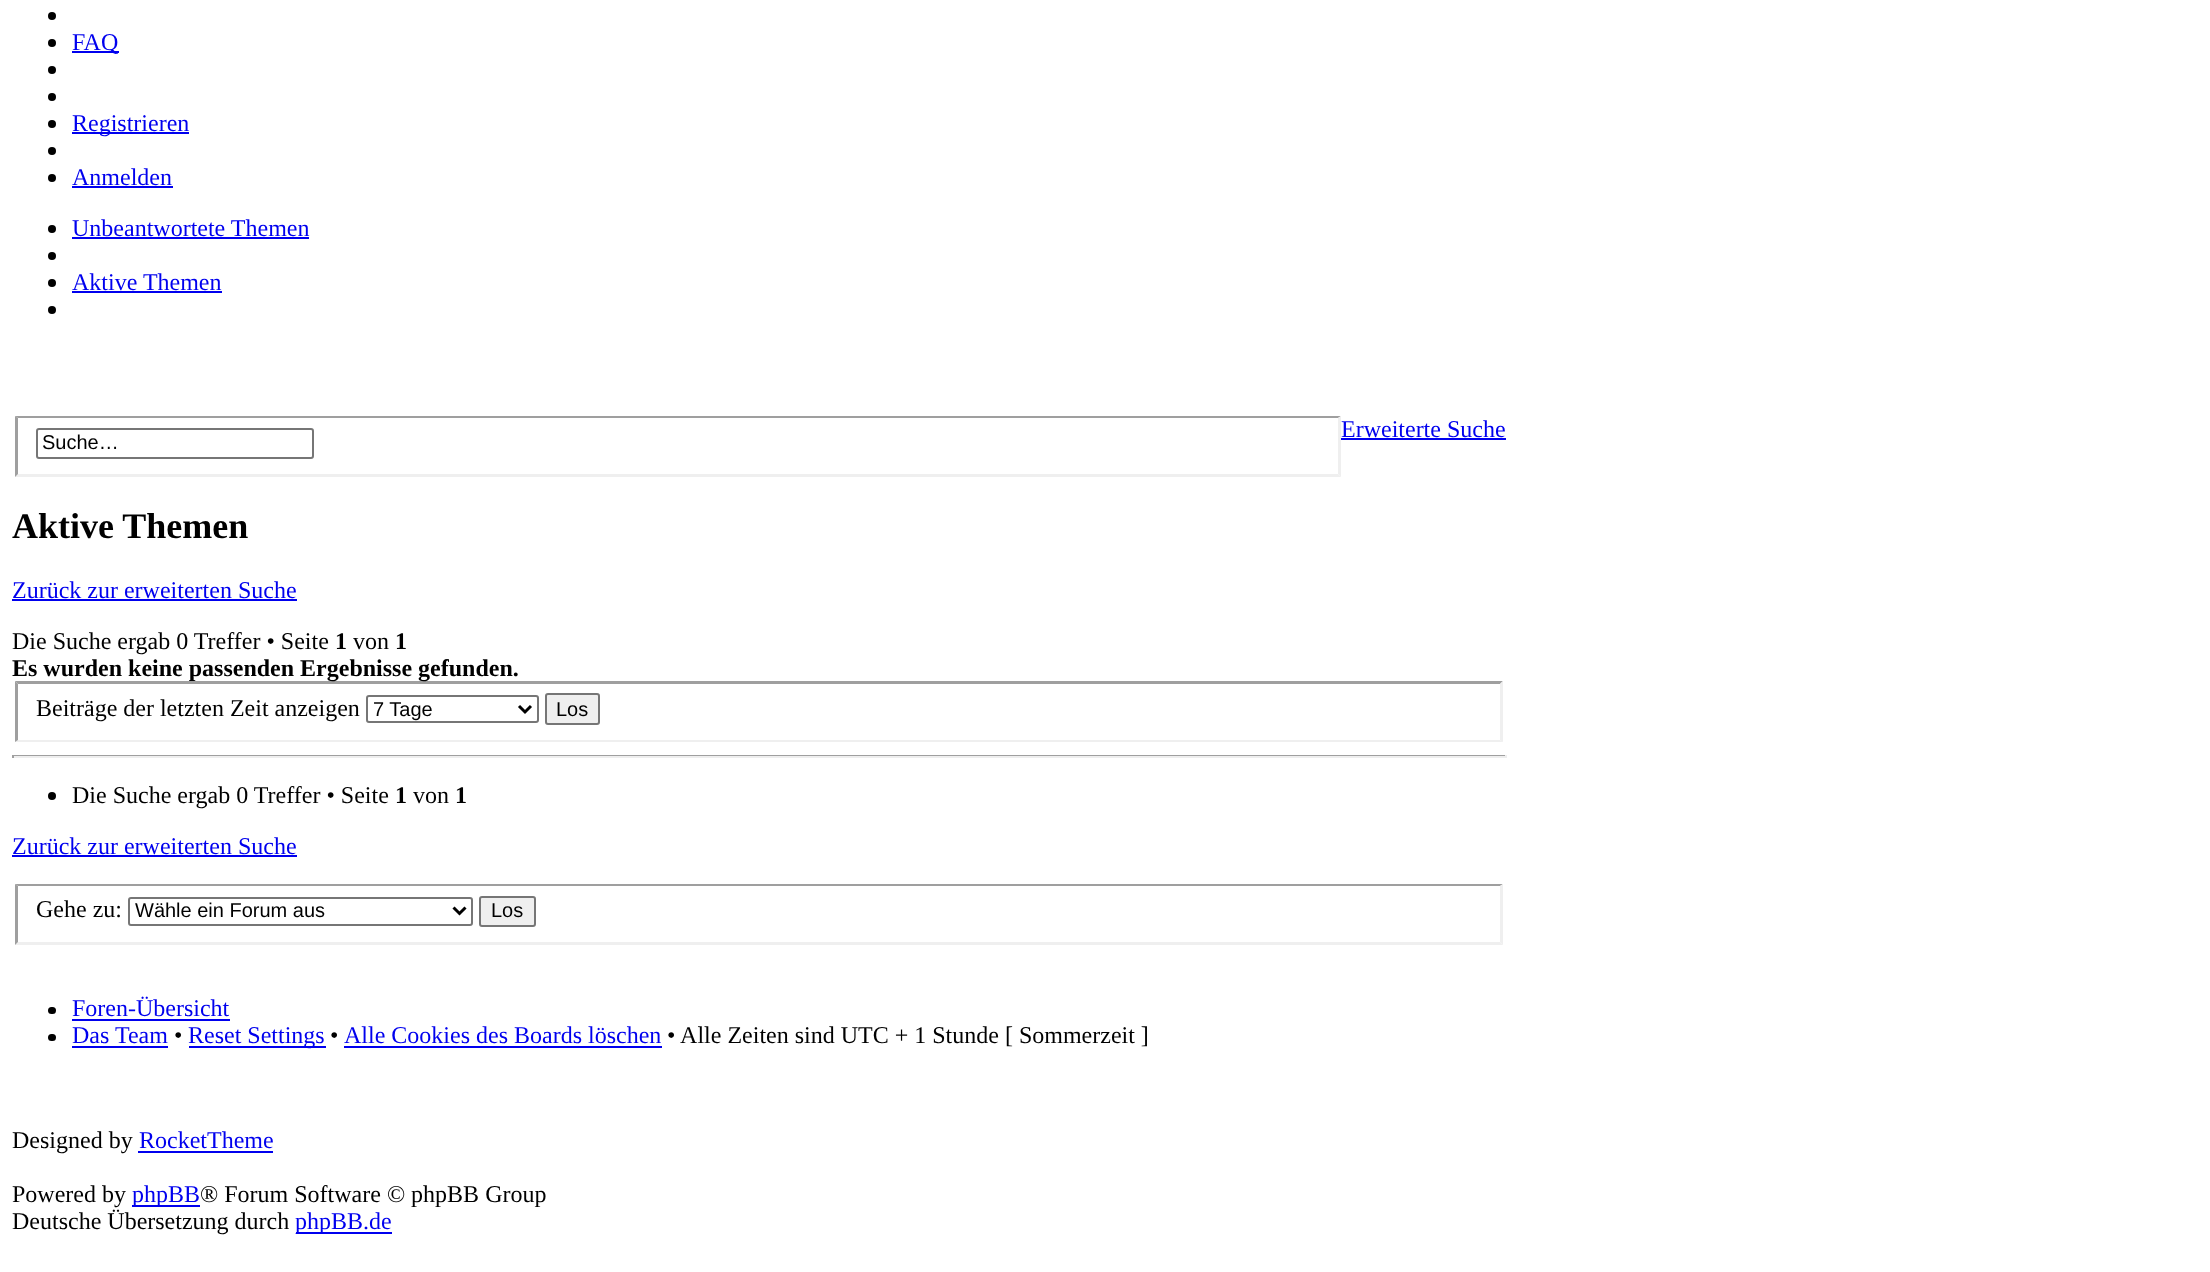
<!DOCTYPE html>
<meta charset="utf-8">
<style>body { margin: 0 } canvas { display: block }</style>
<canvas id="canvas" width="2210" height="1272"></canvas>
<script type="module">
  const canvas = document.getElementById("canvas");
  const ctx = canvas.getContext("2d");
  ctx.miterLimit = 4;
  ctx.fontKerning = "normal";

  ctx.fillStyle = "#ffffff";
  ctx.fillRect(0, 0, 2210, 1272);
  ctx.fillStyle = "#000000";
  ctx.beginPath();
  ctx.arc(52, 16, 4, 0, Math.PI * 2);
  ctx.fill();
  ctx.beginPath();
  ctx.arc(52, 43, 4, 0, Math.PI * 2);
  ctx.fill();
  ctx.fillStyle = "#0000ee";
  ctx.fillRect(72, 51, 47, 2);
  ctx.font = "24px Liberation Serif";
  ctx.fillText("FAQ", 72, 50);
  ctx.fillStyle = "#000000";
  ctx.beginPath();
  ctx.arc(52, 70, 4, 0, Math.PI * 2);
  ctx.fill();
  ctx.beginPath();
  ctx.arc(52, 97, 4, 0, Math.PI * 2);
  ctx.fill();
  ctx.beginPath();
  ctx.arc(52, 124, 4, 0, Math.PI * 2);
  ctx.fill();
  ctx.fillStyle = "#0000ee";
  ctx.fillRect(72, 132, 117, 2);
  ctx.fillText("Registrieren", 72, 131);
  ctx.fillStyle = "#000000";
  ctx.beginPath();
  ctx.arc(52, 151, 4, 0, Math.PI * 2);
  ctx.fill();
  ctx.beginPath();
  ctx.arc(52, 178, 4, 0, Math.PI * 2);
  ctx.fill();
  ctx.fillStyle = "#0000ee";
  ctx.fillText("Anmelden", 72, 185);
  ctx.fillRect(72, 186, 101, 2);
  ctx.fillStyle = "#000000";
  ctx.beginPath();
  ctx.arc(52, 229, 4, 0, Math.PI * 2);
  ctx.fill();
  ctx.fillStyle = "#0000ee";
  ctx.fillText("Unbeantwortete Themen", 72, 236);
  ctx.fillRect(72, 237, 237, 2);
  ctx.fillStyle = "#000000";
  ctx.beginPath();
  ctx.arc(52, 256, 4, 0, Math.PI * 2);
  ctx.fill();
  ctx.beginPath();
  ctx.arc(52, 283, 4, 0, Math.PI * 2);
  ctx.fill();
  ctx.fillStyle = "#0000ee";
  ctx.fillText("Aktive Themen", 72, 290);
  ctx.fillRect(72, 291, 150, 2);
  ctx.fillStyle = "#000000";
  ctx.beginPath();
  ctx.arc(52, 310, 4, 0, Math.PI * 2);
  ctx.fill();
  ctx.fillStyle = "#0000ee";
  ctx.fillText("Erweiterte Suche", 1341, 437);
  ctx.fillRect(1341, 438, 165, 2);
  ctx.fillStyle = "#9f9f9f";
  ctx.beginPath();
  ctx.moveTo(15, 416);
  ctx.lineTo(1341, 416);
  ctx.lineTo(1338, 418);
  ctx.lineTo(18, 418);
  ctx.closePath();
  ctx.fill();
  ctx.fillStyle = "#efefef";
  ctx.beginPath();
  ctx.moveTo(1341, 416);
  ctx.lineTo(1341, 477);
  ctx.lineTo(1338, 474);
  ctx.lineTo(1338, 418);
  ctx.closePath();
  ctx.fill();
  ctx.beginPath();
  ctx.moveTo(1341, 477);
  ctx.lineTo(15, 477);
  ctx.lineTo(18, 474);
  ctx.lineTo(1338, 474);
  ctx.closePath();
  ctx.fill();
  ctx.fillStyle = "#9f9f9f";
  ctx.beginPath();
  ctx.moveTo(15, 477);
  ctx.lineTo(15, 416);
  ctx.lineTo(18, 418);
  ctx.lineTo(18, 474);
  ctx.closePath();
  ctx.fill();
  ctx.beginPath();
  ctx.roundRect(37, 429, 276, 29, 2);
  ctx.strokeStyle = "#767676";
  ctx.lineWidth = 2;
  ctx.stroke();
  ctx.font = "20px Liberation Sans";
  ctx.fillStyle = "#000000";
  ctx.fillText("Suche…", 42, 449);
  ctx.font = "bold 36px Liberation Serif";
  ctx.fillText("Aktive Themen", 12, 538);
  ctx.font = "24px Liberation Serif";
  ctx.fillStyle = "#0000ee";
  ctx.fillText("Zurück zur erweiterten Suche", 12, 598);
  ctx.fillRect(12, 599, 285, 2);
  ctx.fillStyle = "#000000";
  ctx.fillText("Die Suche ergab 0 Treffer • Seite", 12, 649);
  ctx.font = "bold 24px Liberation Serif";
  ctx.fillText("1", 335, 649);
  ctx.font = "24px Liberation Serif";
  ctx.fillText("von", 353, 649);
  ctx.font = "bold 24px Liberation Serif";
  ctx.fillText("1", 395, 649);
  ctx.fillStyle = "#9f9f9f";
  ctx.beginPath();
  ctx.moveTo(15, 681);
  ctx.lineTo(1503, 681);
  ctx.lineTo(1500, 684);
  ctx.lineTo(18, 684);
  ctx.closePath();
  ctx.fill();
  ctx.fillStyle = "#efefef";
  ctx.beginPath();
  ctx.moveTo(1503, 681);
  ctx.lineTo(1503, 742);
  ctx.lineTo(1500, 740);
  ctx.lineTo(1500, 684);
  ctx.closePath();
  ctx.fill();
  ctx.beginPath();
  ctx.moveTo(1503, 742);
  ctx.lineTo(15, 742);
  ctx.lineTo(18, 740);
  ctx.lineTo(1500, 740);
  ctx.closePath();
  ctx.fill();
  ctx.fillStyle = "#9f9f9f";
  ctx.beginPath();
  ctx.moveTo(15, 742);
  ctx.lineTo(15, 681);
  ctx.lineTo(18, 684);
  ctx.lineTo(18, 740);
  ctx.closePath();
  ctx.fill();
  ctx.fillStyle = "#000000";
  ctx.fillText("Es wurden keine passenden Ergebnisse gefunden.", 12, 676);
  ctx.font = "24px Liberation Serif";
  ctx.fillText("Beiträge der letzten Zeit anzeigen", 36, 716);
  ctx.beginPath();
  ctx.roundRect(367, 696, 171, 26, 2);
  ctx.stroke();
  ctx.beginPath();
  ctx.moveTo(519, 706);
  ctx.lineTo(525, 712);
  ctx.lineTo(531, 706);
  ctx.strokeStyle = "#000000";
  ctx.lineWidth = 3;
  ctx.stroke();
  ctx.font = "20px Liberation Sans";
  ctx.fillText("7 Tage", 373, 716);
  ctx.fillStyle = "#efefef";
  ctx.beginPath();
  ctx.roundRect(546, 694, 53, 30, 2);
  ctx.fill();
  ctx.strokeStyle = "#767676";
  ctx.lineWidth = 2;
  ctx.stroke();
  ctx.fillStyle = "#000000";
  ctx.fillText("Los", 556, 716);
  ctx.fillStyle = "#9f9f9f";
  ctx.fillRect(12, 755, 1494, 1);
  ctx.fillStyle = "#eeeeee";
  ctx.fillRect(1505, 755, 2, 3);
  ctx.fillRect(12, 756, 1494, 2);
  ctx.fillStyle = "#9f9f9f";
  ctx.fillRect(12, 755, 2, 3);
  ctx.fillStyle = "#000000";
  ctx.beginPath();
  ctx.arc(52, 796, 4, 0, Math.PI * 2);
  ctx.fill();
  ctx.font = "24px Liberation Serif";
  ctx.fillText("Die Suche ergab 0 Treffer • Seite", 72, 803);
  ctx.font = "bold 24px Liberation Serif";
  ctx.fillText("1", 395, 803);
  ctx.font = "24px Liberation Serif";
  ctx.fillText("von", 413, 803);
  ctx.font = "bold 24px Liberation Serif";
  ctx.fillText("1", 455, 803);
  ctx.font = "24px Liberation Serif";
  ctx.fillStyle = "#0000ee";
  ctx.fillText("Zurück zur erweiterten Suche", 12, 854);
  ctx.fillRect(12, 855, 285, 2);
  ctx.fillStyle = "#9f9f9f";
  ctx.beginPath();
  ctx.moveTo(15, 884);
  ctx.lineTo(1503, 884);
  ctx.lineTo(1500, 886);
  ctx.lineTo(18, 886);
  ctx.closePath();
  ctx.fill();
  ctx.fillStyle = "#efefef";
  ctx.beginPath();
  ctx.moveTo(1503, 884);
  ctx.lineTo(1503, 945);
  ctx.lineTo(1500, 942);
  ctx.lineTo(1500, 886);
  ctx.closePath();
  ctx.fill();
  ctx.beginPath();
  ctx.moveTo(1503, 945);
  ctx.lineTo(15, 945);
  ctx.lineTo(18, 942);
  ctx.lineTo(1500, 942);
  ctx.closePath();
  ctx.fill();
  ctx.fillStyle = "#9f9f9f";
  ctx.beginPath();
  ctx.moveTo(15, 945);
  ctx.lineTo(15, 884);
  ctx.lineTo(18, 886);
  ctx.lineTo(18, 942);
  ctx.closePath();
  ctx.fill();
  ctx.fillStyle = "#000000";
  ctx.fillText("Gehe zu:", 36, 917);
  ctx.beginPath();
  ctx.roundRect(129, 898, 343, 27, 2);
  ctx.stroke();
  ctx.beginPath();
  ctx.moveTo(453.5, 907.5);
  ctx.lineTo(459.5, 913.5);
  ctx.lineTo(465.5, 907.5);
  ctx.strokeStyle = "#000000";
  ctx.lineWidth = 3;
  ctx.stroke();
  ctx.font = "20px Liberation Sans";
  ctx.fillText("Wähle ein Forum aus", 135, 917);
  ctx.fillStyle = "#efefef";
  ctx.beginPath();
  ctx.roundRect(480, 897, 55, 29, 2);
  ctx.fill();
  ctx.strokeStyle = "#767676";
  ctx.lineWidth = 2;
  ctx.stroke();
  ctx.fillStyle = "#000000";
  ctx.fillText("Los", 491, 917);
  ctx.beginPath();
  ctx.roundRect(48, 1007, 8, 7, 3.5);
  ctx.fill();
  ctx.font = "24px Liberation Serif";
  ctx.fillStyle = "#0000ee";
  ctx.fillText("Foren-Übersicht", 72, 1016);
  ctx.fillRect(72, 1019, 158, 2);
  ctx.fillStyle = "#000000";
  ctx.beginPath();
  ctx.roundRect(48, 1034, 8, 7, 3.5);
  ctx.fill();
  ctx.fillStyle = "#0000ee";
  ctx.fillText("Das Team", 72, 1043);
  ctx.fillRect(72, 1046, 96, 2);
  ctx.fillStyle = "#000000";
  ctx.fillText("•", 174, 1043);
  ctx.fillStyle = "#0000ee";
  ctx.fillRect(189, 1046, 137, 2);
  ctx.fillText("Reset Settings", 188, 1043);
  ctx.fillStyle = "#000000";
  ctx.fillText("•", 330, 1043);
  ctx.fillStyle = "#0000ee";
  ctx.fillText("Alle Cookies des Boards löschen", 344, 1043);
  ctx.fillRect(344, 1046, 318, 2);
  ctx.fillStyle = "#000000";
  ctx.fillText("• Alle Zeiten sind UTC + 1 Stunde [ Sommerzeit ]", 667, 1043);
  ctx.fillText("Designed by", 12, 1148);
  ctx.fillStyle = "#0000ee";
  ctx.fillText("RocketTheme", 139, 1148);
  ctx.fillRect(138, 1151, 135, 2);
  ctx.fillStyle = "#000000";
  ctx.fillText("Powered by", 12, 1202);
  ctx.fillStyle = "#0000ee";
  ctx.fillRect(132, 1205, 68, 2);
  ctx.fillText("phpBB", 132, 1202);
  ctx.fillStyle = "#000000";
  ctx.fillText("® Forum Software © phpBB Group", 200, 1202);
  ctx.fillText("Deutsche Übersetzung durch", 12, 1229);
  ctx.fillStyle = "#0000ee";
  ctx.fillRect(296, 1232, 96, 2);
  ctx.fillText("phpBB.de", 295, 1229);
</script>
